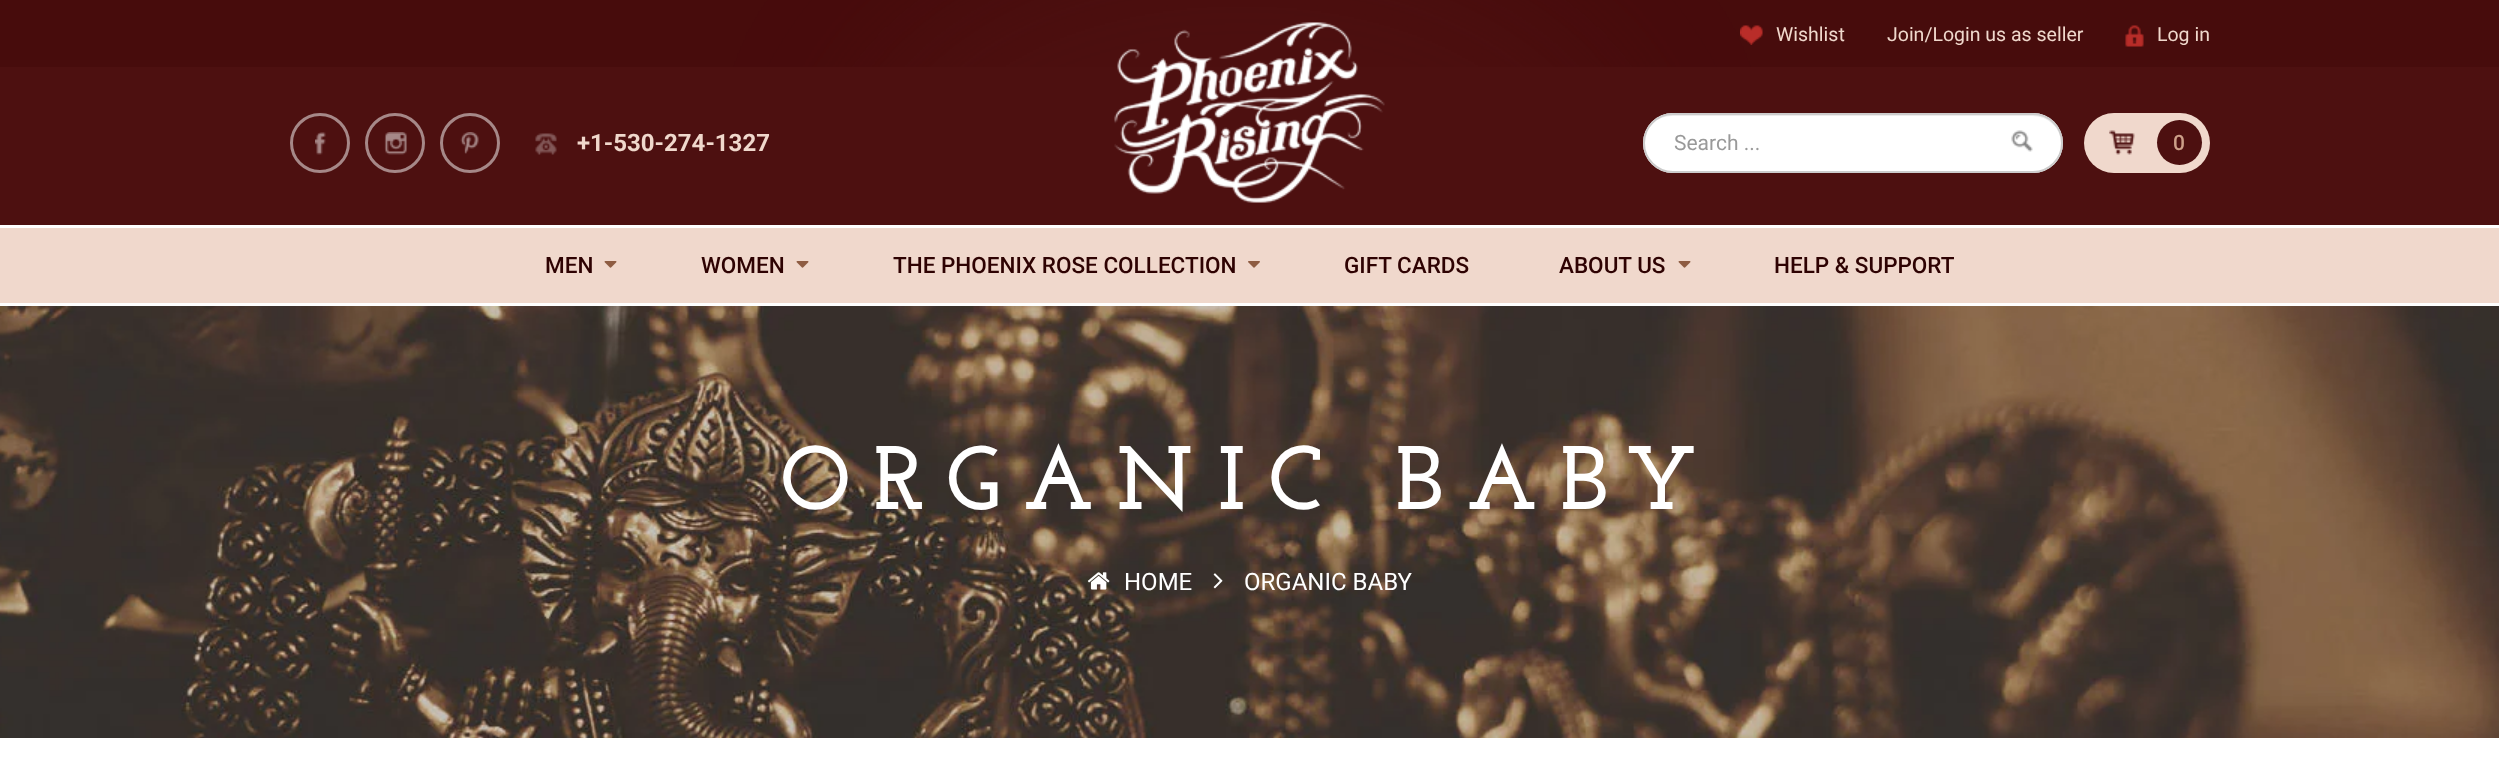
<!DOCTYPE html>
<meta charset="utf-8">
<style>body { margin: 0 } canvas { display: block }</style>
<canvas id="canvas" width="2499" height="782"></canvas>
<script type="module">
  const canvas = document.getElementById("canvas");
  const ctx = canvas.getContext("2d");
  ctx.miterLimit = 4;
  ctx.fontKerning = "normal";
  async function loadImage(src) {
    const img = new Image();
    img.src = src;
    await img.decode();
    return img;
  }

  ctx.fillStyle = "#ffffff";
  ctx.fillRect(0, 0, 2499, 782);
  ctx.fillStyle = "#4d1010";
  ctx.fillRect(0, 0, 2499, 225);
  ctx.drawImage(await loadImage("img1.png"), 0, 0, 2499, 67);
  ctx.beginPath();
  ctx.arc(320, 143, 28.5, 0, Math.PI * 2);
  ctx.strokeStyle = "#a68888";
  ctx.lineWidth = 3;
  ctx.stroke();
  ctx.drawImage(await loadImage("img2.png"), 315, 132, 11, 23);
  ctx.beginPath();
  ctx.arc(395, 143, 28.5, 0, Math.PI * 2);
  ctx.stroke();
  ctx.drawImage(await loadImage("img3.png"), 384, 132, 23, 23);
  ctx.beginPath();
  ctx.arc(470, 143, 28.5, 0, Math.PI * 2);
  ctx.stroke();
  ctx.drawImage(await loadImage("img4.png"), 460, 132, 19, 22);
  ctx.drawImage(await loadImage("img5.png"), 535, 133, 22, 22);
  ctx.font = "bold 24px Roboto";
  ctx.fillStyle = "#f0d8cc";
  ctx.fillText("+1-530-274-1327", 577, 151);
  ctx.drawImage(await loadImage("img6.png"), 1114, 22, 271, 181);
  ctx.drawImage(await loadImage("img7.png"), 1740, 25, 23, 20);
  ctx.font = "19.5px Roboto";
  ctx.fillText("Wishlist", 1776, 41);
  ctx.fillText("Join/Login us as seller", 1887, 41);
  ctx.drawImage(await loadImage("img8.png"), 2125, 25, 19, 22);
  ctx.fillText("Log in", 2157, 41);
  ctx.fillStyle = "#ffffff";
  ctx.beginPath();
  ctx.roundRect(1643, 113, 420, 60, 30);
  ctx.fill();
  ctx.fillStyle = "#ececec";
  ctx.beginPath();
  ctx.moveTo(1672, 116);
  ctx.lineTo(2032, 116);
  ctx.bezierCurveTo(2048, 116, 2061, 128, 2061, 143);
  ctx.bezierCurveTo(2061, 127, 2048, 114, 2032, 114);
  ctx.lineTo(1672, 114);
  ctx.bezierCurveTo(1657, 114, 1644, 127, 1644, 143);
  ctx.bezierCurveTo(1644, 128, 1657, 116, 1672, 116);
  ctx.closePath();
  ctx.fill();
  ctx.beginPath();
  ctx.roundRect(1644, 114, 418, 58, 29);
  ctx.strokeStyle = "#cccccc";
  ctx.lineWidth = 2;
  ctx.stroke();
  ctx.font = "21px Roboto";
  ctx.fillStyle = "#999999";
  ctx.fillText("Search ...", 1674, 150);
  ctx.drawImage(await loadImage("img9.png"), 2011, 130, 22, 22);
  ctx.fillStyle = "#f0d8cc";
  ctx.beginPath();
  ctx.roundRect(2084, 113, 126, 60, 30);
  ctx.fill();
  ctx.drawImage(await loadImage("img10.png"), 2109, 130, 26, 25);
  ctx.fillStyle = "#4d1010";
  ctx.beginPath();
  ctx.arc(2179.5, 142.5, 22.5, 0, Math.PI * 2);
  ctx.fill();
  ctx.font = "500 21px Roboto";
  ctx.fillStyle = "#cc9f88";
  ctx.fillText("0", 2173, 150);
  ctx.fillStyle = "#f0d8cc";
  ctx.fillRect(0, 228, 2499, 75);
  ctx.font = "500 22.5px Roboto";
  ctx.fillStyle = "#2e0202";
  ctx.fillText("MEN", 545, 273);
  ctx.drawImage(await loadImage("img11.png"), 604, 261, 13, 7);
  ctx.fillText("WOMEN", 701, 273);
  ctx.drawImage(await loadImage("img11.png"), 796, 261, 13, 7);
  ctx.fillText("THE PHOENIX ROSE COLLECTION", 893, 273);
  ctx.drawImage(await loadImage("img12.png"), 1248, 261, 12, 7);
  ctx.fillText("GIFT CARDS", 1344, 273);
  ctx.fillText("ABOUT US", 1559, 273);
  ctx.drawImage(await loadImage("img11.png"), 1678, 261, 13, 7);
  ctx.fillText("HELP & SUPPORT", 1774, 273);
  ctx.drawImage(await loadImage("img13.png"), 0, 306, 2499, 432);
  ctx.letterSpacing = "22.5px";
  ctx.font = "bold 90px Josefin Slab";
  ctx.fillStyle = "#ffffff";
  ctx.fillText("ORGANIC BABY", 780, 509);
  ctx.drawImage(await loadImage("img14.png"), 1087, 572, 23, 18);
  ctx.letterSpacing = "0px";
  ctx.font = "24px Roboto";
  ctx.fillText("HOME", 1124, 590);
  ctx.drawImage(await loadImage("img15.png"), 1213, 573, 10, 16);
  ctx.fillText("ORGANIC BABY", 1244, 590);
</script>
